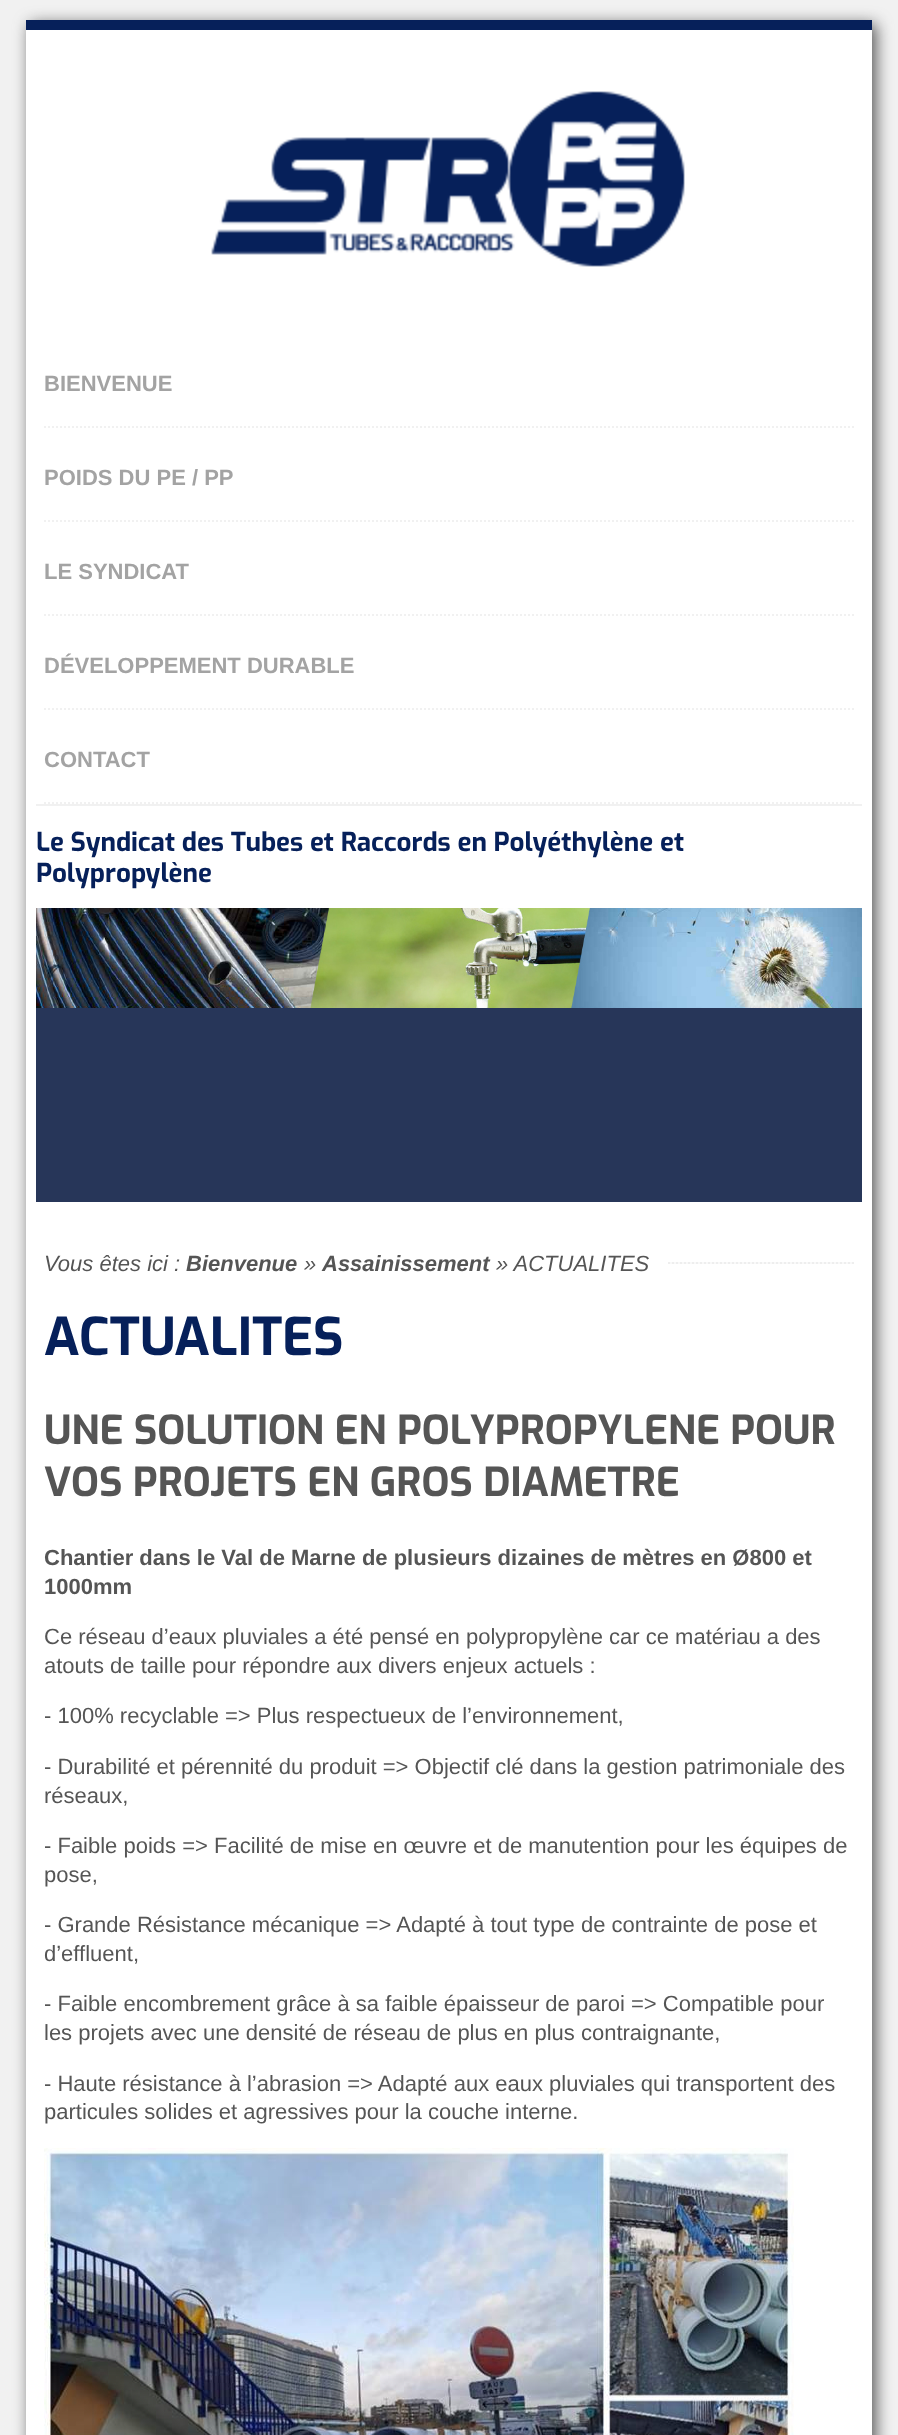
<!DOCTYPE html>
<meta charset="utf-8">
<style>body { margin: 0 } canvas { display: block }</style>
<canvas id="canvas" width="898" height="2435"></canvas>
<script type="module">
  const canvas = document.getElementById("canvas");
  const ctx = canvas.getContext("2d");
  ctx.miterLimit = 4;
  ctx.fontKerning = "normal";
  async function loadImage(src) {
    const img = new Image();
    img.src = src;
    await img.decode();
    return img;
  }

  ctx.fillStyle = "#f1f1f1";
  ctx.fillRect(0, 0, 898, 2435);
  ctx.fillStyle = "#555555";
  ctx.filter = "blur(8px)";
  ctx.beginPath();
  ctx.rect(30, 24, 846, 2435);
  ctx.fill();
  ctx.filter = "none";
  ctx.fillStyle = "#ffffff";
  ctx.fillRect(26, 30, 846, 2405);
  ctx.fillStyle = "#06205a";
  ctx.fillRect(26, 20, 846, 10);
  ctx.fillStyle = "#f1f1f1";
  ctx.fillRect(36, 804, 826, 2);
  ctx.drawImage(await loadImage("img1.png"), 211, 91, 474, 176);
  ctx.beginPath();
  ctx.moveTo(44, 427);
  ctx.lineTo(854, 427);
  ctx.strokeStyle = "#f1f1f1";
  ctx.lineWidth = 2;
  ctx.setLineDash([2, 2]);
  ctx.stroke();
  ctx.font = "bold 22px Liberation Sans";
  ctx.fillStyle = "#a3a3a3";
  ctx.fillText("BIENVENUE", 44, 391);
  ctx.beginPath();
  ctx.moveTo(44, 521);
  ctx.lineTo(854, 521);
  ctx.stroke();
  ctx.fillText("POIDS DU PE / PP", 44, 485);
  ctx.beginPath();
  ctx.moveTo(44, 615);
  ctx.lineTo(854, 615);
  ctx.stroke();
  ctx.fillText("LE SYNDICAT", 44, 579);
  ctx.beginPath();
  ctx.moveTo(44, 709);
  ctx.lineTo(854, 709);
  ctx.stroke();
  ctx.fillText("DÉVELOPPEMENT DURABLE", 44, 673);
  ctx.beginPath();
  ctx.moveTo(44, 803);
  ctx.lineTo(854, 803);
  ctx.stroke();
  ctx.fillText("CONTACT", 44, 767);
  ctx.font = "bold 26px Exo";
  ctx.fillStyle = "#06205a";
  ctx.fillText("Le Syndicat des Tubes et Raccords en Polyéthylène et", 36, 851);
  ctx.fillText("Polypropylène", 36, 882);
  ctx.fillStyle = "#273659";
  ctx.fillRect(36, 1008, 826, 194);
  ctx.drawImage(await loadImage("img2.png"), 36, 908, 826, 100);
  ctx.drawImage(await loadImage("img3.png"), 668, 1262, 186, 2);
  ctx.font = "italic 22px Liberation Sans";
  ctx.fillStyle = "#555555";
  ctx.fillText("Vous êtes ici :", 44, 1271);
  ctx.font = "italic bold 22px Liberation Sans";
  ctx.fillText("Bienvenue", 186, 1271);
  ctx.font = "italic 22px Liberation Sans";
  ctx.fillText("»", 304, 1271);
  ctx.font = "italic bold 22px Liberation Sans";
  ctx.fillText("Assainissement", 322, 1271);
  ctx.font = "italic 22px Liberation Sans";
  ctx.fillText("» ACTUALITES", 496, 1271);
  ctx.font = "bold 52px Exo";
  ctx.fillStyle = "#06205a";
  ctx.fillText("ACTUALITES", 44, 1355);
  ctx.font = "bold 40px Exo";
  ctx.fillStyle = "#555555";
  ctx.fillText("UNE SOLUTION EN POLYPROPYLENE POUR", 44, 1444);
  ctx.fillText("VOS PROJETS EN GROS DIAMETRE", 44, 1496);
  ctx.font = "bold 22px Liberation Sans";
  ctx.fillText("Chantier dans le Val de Marne de plusieurs dizaines de mètres en Ø800 et", 44, 1565);
  ctx.fillText("1000mm", 44, 1594);
  ctx.font = "22px Liberation Sans";
  ctx.fillText("Ce réseau d’eaux pluviales a été pensé en polypropylène car ce matériau a des", 44, 1644);
  ctx.fillText("atouts de taille pour répondre aux divers enjeux actuels :", 44, 1673);
  ctx.fillText("- 100% recyclable => Plus respectueux de l’environnement,", 44, 1723);
  ctx.fillText("- Durabilité et pérennité du produit => Objectif clé dans la gestion patrimoniale des", 44, 1774);
  ctx.fillText("réseaux,", 44, 1803);
  ctx.fillText("- Faible poids => Facilité de mise en œuvre et de manutention pour les équipes de", 44, 1853);
  ctx.fillText("pose,", 44, 1882);
  ctx.fillText("- Grande Résistance mécanique => Adapté à tout type de contrainte de pose et", 44, 1932);
  ctx.fillText("d’effluent,", 44, 1961);
  ctx.fillText("- Faible encombrement grâce à sa faible épaisseur de paroi => Compatible pour", 44, 2011);
  ctx.fillText("les projets avec une densité de réseau de plus en plus contraignante,", 44, 2040);
  ctx.fillText("- Haute résistance à l’abrasion => Adapté aux eaux pluviales qui transportent des", 44, 2091);
  ctx.fillText("particules solides et agressives pour la couche interne.", 44, 2119);
  ctx.drawImage(await loadImage("img4.png"), 44, 2148, 750, 287);
</script>
